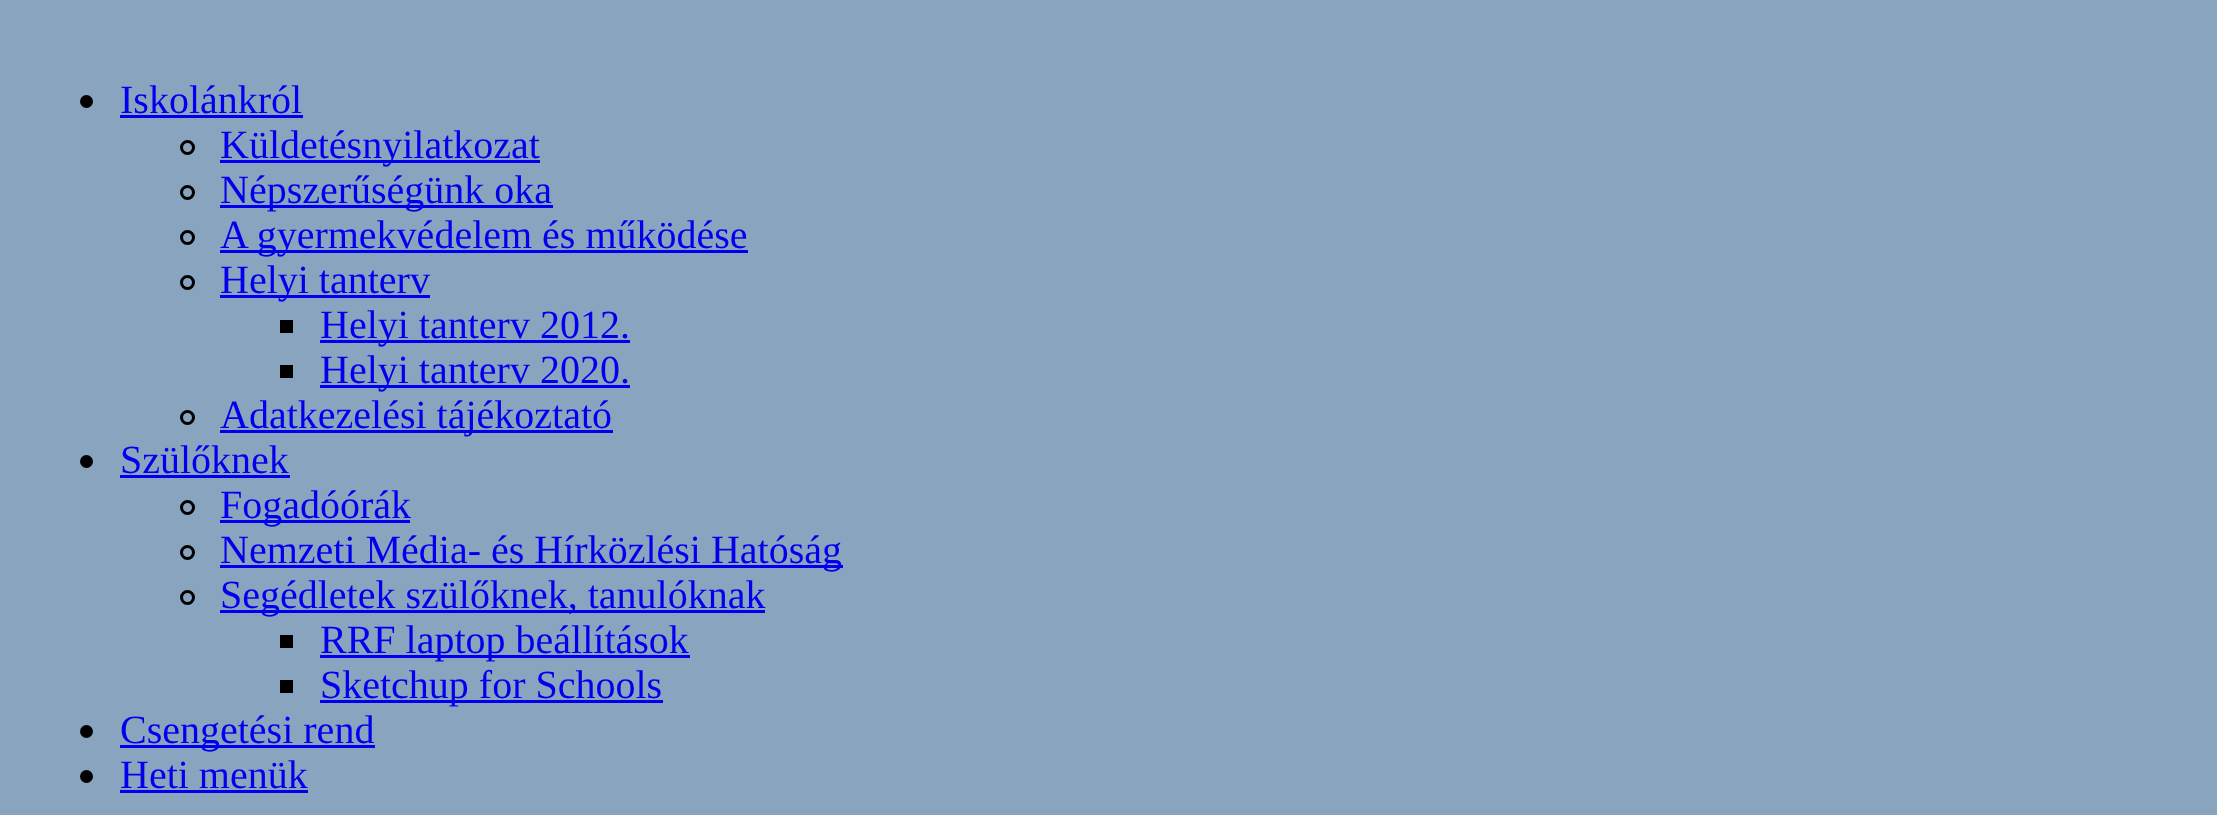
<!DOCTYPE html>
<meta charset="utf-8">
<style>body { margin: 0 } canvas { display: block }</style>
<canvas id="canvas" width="2217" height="815"></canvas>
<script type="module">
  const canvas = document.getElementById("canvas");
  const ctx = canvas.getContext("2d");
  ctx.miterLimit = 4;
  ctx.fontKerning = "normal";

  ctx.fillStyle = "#89a4bf";
  ctx.fillRect(0, 0, 2217, 815);
  ctx.fillStyle = "#000000";
  ctx.beginPath();
  ctx.arc(86.5, 101.5, 6.5, 0, Math.PI * 2);
  ctx.fill();
  ctx.font = "40px Liberation Serif";
  ctx.fillStyle = "#0000ee";
  ctx.fillText("Iskolánkról", 120, 113);
  ctx.fillRect(120, 115, 183, 3);
  ctx.beginPath();
  ctx.arc(187.5, 147.5, 6, 0, Math.PI * 2);
  ctx.strokeStyle = "#000000";
  ctx.lineWidth = 3;
  ctx.stroke();
  ctx.fillRect(220, 160, 320, 3);
  ctx.fillText("Küldetésnyilatkozat", 220, 158);
  ctx.beginPath();
  ctx.arc(187.5, 192.5, 6, 0, Math.PI * 2);
  ctx.stroke();
  ctx.fillRect(220, 205, 333, 3);
  ctx.fillText("Népszerűségünk oka", 220, 203);
  ctx.beginPath();
  ctx.arc(187.5, 237.5, 6, 0, Math.PI * 2);
  ctx.stroke();
  ctx.fillRect(220, 250, 528, 3);
  ctx.fillText("A gyermekvédelem és működése", 220, 248);
  ctx.beginPath();
  ctx.arc(187.5, 282.5, 6, 0, Math.PI * 2);
  ctx.stroke();
  ctx.fillRect(220, 295, 210, 3);
  ctx.fillText("Helyi tanterv", 220, 293);
  ctx.fillStyle = "#000000";
  ctx.fillRect(280, 320, 13, 13);
  ctx.fillStyle = "#0000ee";
  ctx.fillRect(320, 340, 310, 3);
  ctx.fillText("Helyi tanterv 2012.", 320, 338);
  ctx.fillStyle = "#000000";
  ctx.fillRect(280, 365, 13, 13);
  ctx.fillStyle = "#0000ee";
  ctx.fillRect(320, 385, 310, 3);
  ctx.fillText("Helyi tanterv 2020.", 320, 383);
  ctx.beginPath();
  ctx.arc(187.5, 417.5, 6, 0, Math.PI * 2);
  ctx.stroke();
  ctx.fillRect(220, 430, 393, 3);
  ctx.fillText("Adatkezelési tájékoztató", 220, 428);
  ctx.fillStyle = "#000000";
  ctx.beginPath();
  ctx.arc(86.5, 461.5, 6.5, 0, Math.PI * 2);
  ctx.fill();
  ctx.fillStyle = "#0000ee";
  ctx.fillText("Szülőknek", 120, 473);
  ctx.fillRect(120, 475, 170, 3);
  ctx.beginPath();
  ctx.arc(187.5, 507.5, 6, 0, Math.PI * 2);
  ctx.stroke();
  ctx.fillRect(220, 520, 190, 3);
  ctx.fillText("Fogadóórák", 220, 518);
  ctx.beginPath();
  ctx.arc(187.5, 552.5, 6, 0, Math.PI * 2);
  ctx.stroke();
  ctx.fillRect(220, 565, 623, 3);
  ctx.fillText("Nemzeti Média- és Hírközlési Hatóság", 220, 563);
  ctx.beginPath();
  ctx.arc(187.5, 597.5, 6, 0, Math.PI * 2);
  ctx.stroke();
  ctx.fillRect(220, 610, 545, 3);
  ctx.fillText("Segédletek szülőknek, tanulóknak", 220, 608);
  ctx.fillStyle = "#000000";
  ctx.fillRect(280, 635, 13, 13);
  ctx.fillStyle = "#0000ee";
  ctx.fillRect(320, 655, 370, 3);
  ctx.fillText("RRF laptop beállítások", 320, 653);
  ctx.fillStyle = "#000000";
  ctx.fillRect(280, 680, 13, 13);
  ctx.fillStyle = "#0000ee";
  ctx.fillRect(320, 700, 343, 3);
  ctx.fillText("Sketchup for Schools", 320, 698);
  ctx.fillStyle = "#000000";
  ctx.beginPath();
  ctx.arc(86.5, 731.5, 6.5, 0, Math.PI * 2);
  ctx.fill();
  ctx.fillStyle = "#0000ee";
  ctx.fillRect(120, 745, 255, 3);
  ctx.fillText("Csengetési rend", 120, 743);
  ctx.fillStyle = "#000000";
  ctx.beginPath();
  ctx.arc(86.5, 776.5, 6.5, 0, Math.PI * 2);
  ctx.fill();
  ctx.fillStyle = "#0000ee";
  ctx.fillText("Heti menük", 120, 788);
  ctx.fillRect(120, 790, 188, 3);
</script>
